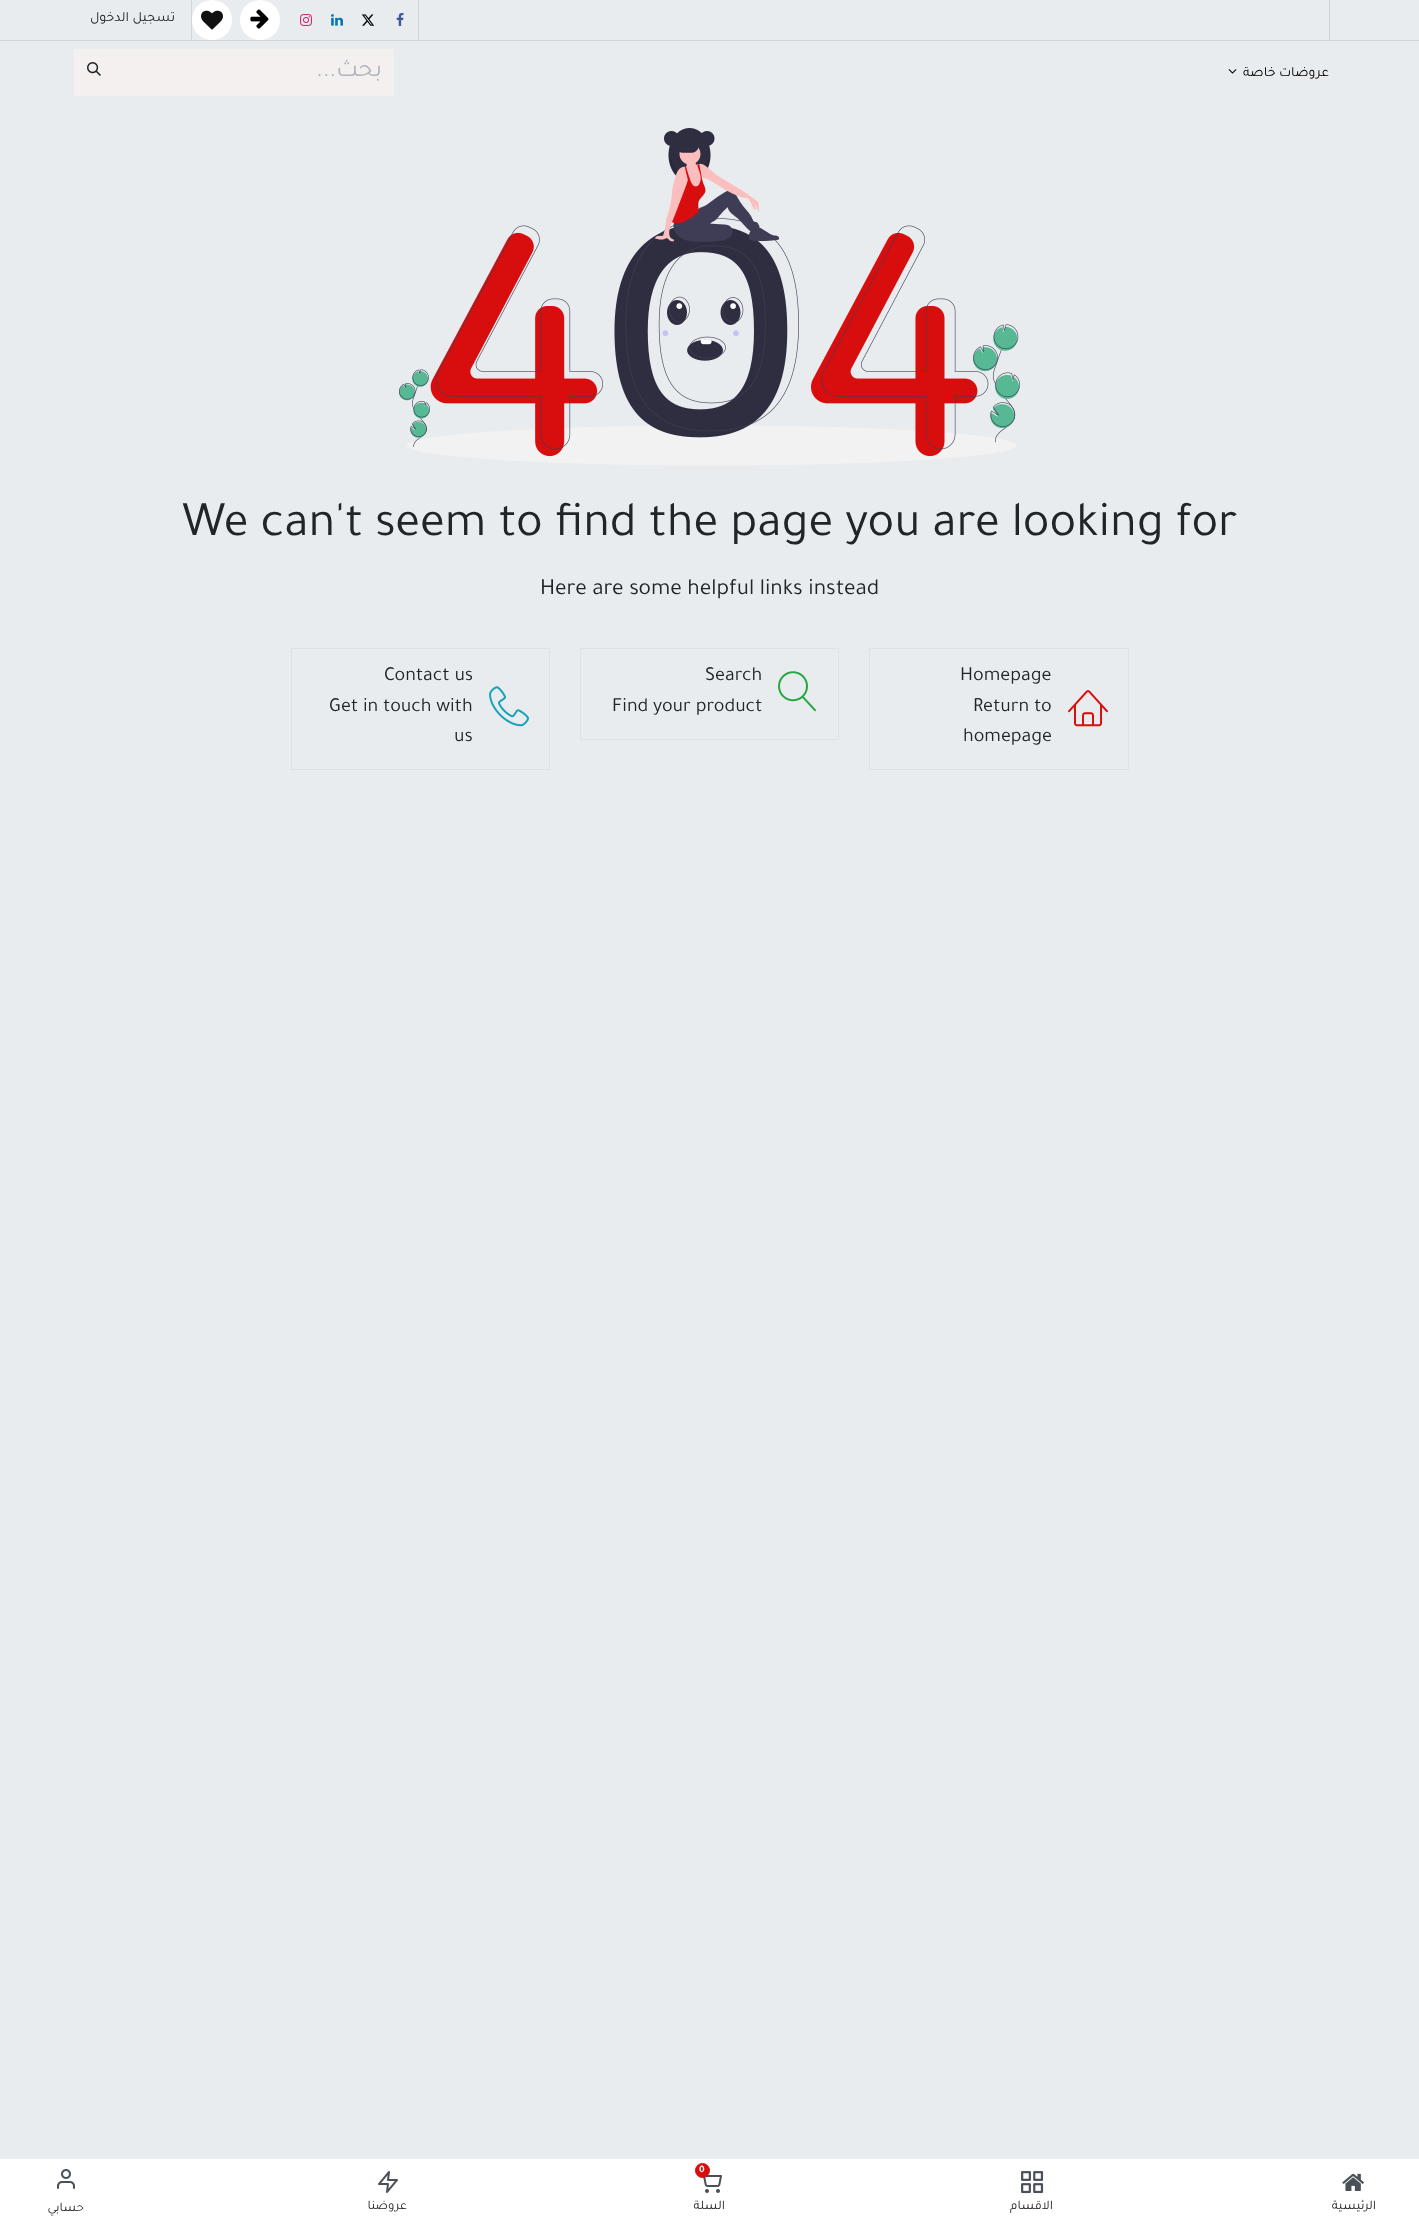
<!DOCTYPE html>
<meta charset="utf-8">
<style>body { margin: 0 } canvas { display: block }</style>
<canvas id="canvas" width="1419" height="2225"></canvas>
<script type="module">
  const canvas = document.getElementById("canvas");
  const ctx = canvas.getContext("2d");
  ctx.miterLimit = 4;
  ctx.fontKerning = "normal";
  async function loadImage(src) {
    const img = new Image();
    img.src = src;
    await img.decode();
    return img;
  }

  ctx.fillStyle = "#e9ecef";
  ctx.fillRect(0, 0, 1419, 2225);
  ctx.fillStyle = "#d2d4d7";
  ctx.fillRect(0, 40, 1419, 1);
  ctx.fillRect(191, 0, 1, 40);
  ctx.direction = "rtl";
  ctx.font = "14px Tajawal";
  ctx.fillStyle = "#212529";
  ctx.fillText("تسجيل الدخول", 175, 21);
  ctx.fillStyle = "#ffffff";
  ctx.beginPath();
  ctx.arc(212, 20, 20, 0, Math.PI * 2);
  ctx.fill();
  ctx.drawImage(await loadImage("img1.png"), 201, 10, 22, 20);
  ctx.beginPath();
  ctx.arc(260, 20, 20, 0, Math.PI * 2);
  ctx.fill();
  ctx.drawImage(await loadImage("img2.png"), 250, 9, 19, 20);
  ctx.fillStyle = "#d2d4d7";
  ctx.fillRect(418, 0, 1, 40);
  ctx.drawImage(await loadImage("img3.png"), 300, 14, 12, 12);
  ctx.drawImage(await loadImage("img4.png"), 331, 14, 12, 12);
  ctx.drawImage(await loadImage("img5.png"), 361, 14, 14, 12);
  ctx.drawImage(await loadImage("img6.png"), 396, 13, 8, 13);
  ctx.fillRect(1329, 0, 1, 40);
  ctx.fillStyle = "#f5f0f0";
  ctx.fillRect(74, 49, 320, 47);
  ctx.drawImage(await loadImage("img7.png"), 87, 62, 14, 14);
  ctx.font = "25px Tajawal";
  ctx.fillStyle = "#adb5bd";
  ctx.fillText("بحث...", 382, 76);
  ctx.drawImage(await loadImage("img8.png"), 1228, 69, 9, 5);
  ctx.font = "14px Tajawal";
  ctx.fillStyle = "#000000";
  ctx.fillText("عروضات خاصة", 1329, 76);
  ctx.drawImage(await loadImage("img9.png"), 399, 128, 621, 338);
  ctx.direction = "ltr";
  ctx.font = "50px Tajawal";
  ctx.fillStyle = "#212529";
  ctx.fillText("We can't seem to find the page you are looking for", 182, 535);
  ctx.font = "23.25px Tajawal";
  ctx.fillText("Here are some helpful links instead", 540, 594);
  ctx.strokeStyle = "#dee2e6";
  ctx.strokeRect(291.5, 648.5, 258, 121);
  ctx.font = "20px Tajawal";
  ctx.fillText("Contact us", 384, 680);
  ctx.fillText("Get in touch with", 329, 711);
  ctx.fillText("us", 454, 741);
  ctx.drawImage(await loadImage("img10.png"), 489, 686, 40, 41);
  ctx.strokeRect(580.5, 648.5, 258, 91);
  ctx.fillText("Search", 705, 680);
  ctx.fillText("Find your product", 612, 711);
  ctx.drawImage(await loadImage("img11.png"), 778, 671, 38, 41);
  ctx.strokeRect(869.5, 648.5, 259, 121);
  ctx.fillText("Homepage", 960, 680);
  ctx.fillText("Return to", 973, 711);
  ctx.fillText("homepage", 963, 741);
  ctx.drawImage(await loadImage("img12.png"), 1068, 690, 40, 37);
  ctx.fillStyle = "#ffffff";
  ctx.fillRect(0, 2159, 1419, 66);
  ctx.drawImage(await loadImage("img13.png"), 57, 2169, 18, 20);
  ctx.direction = "rtl";
  ctx.font = "13px Tajawal";
  ctx.fillStyle = "#212529";
  ctx.fillText("حسابي", 84, 2211);
  ctx.drawImage(await loadImage("img14.png"), 378, 2171, 20, 22);
  ctx.fillText("عروضنا", 407, 2209);
  ctx.drawImage(await loadImage("img15.png"), 703, 2175, 19, 18);
  ctx.fillStyle = "#d80e0e";
  ctx.beginPath();
  ctx.arc(702.5, 2170.5, 7, 0, Math.PI * 2);
  ctx.fill();
  ctx.strokeStyle = "#d80e0e";
  ctx.stroke();
  ctx.direction = "ltr";
  ctx.font = "bold 10px Tajawal";
  ctx.fillStyle = "#ffffff";
  ctx.fillText("0", 699, 2172);
  ctx.direction = "rtl";
  ctx.font = "13px Tajawal";
  ctx.fillStyle = "#212529";
  ctx.fillText("السلة", 725, 2209);
  ctx.drawImage(await loadImage("img16.png"), 1021, 2171, 23, 23);
  ctx.fillText("الاقسام", 1053, 2209);
  ctx.drawImage(await loadImage("img17.png"), 1342, 2173, 22, 18);
  ctx.fillText("الرئيسية", 1376, 2209);
</script>
